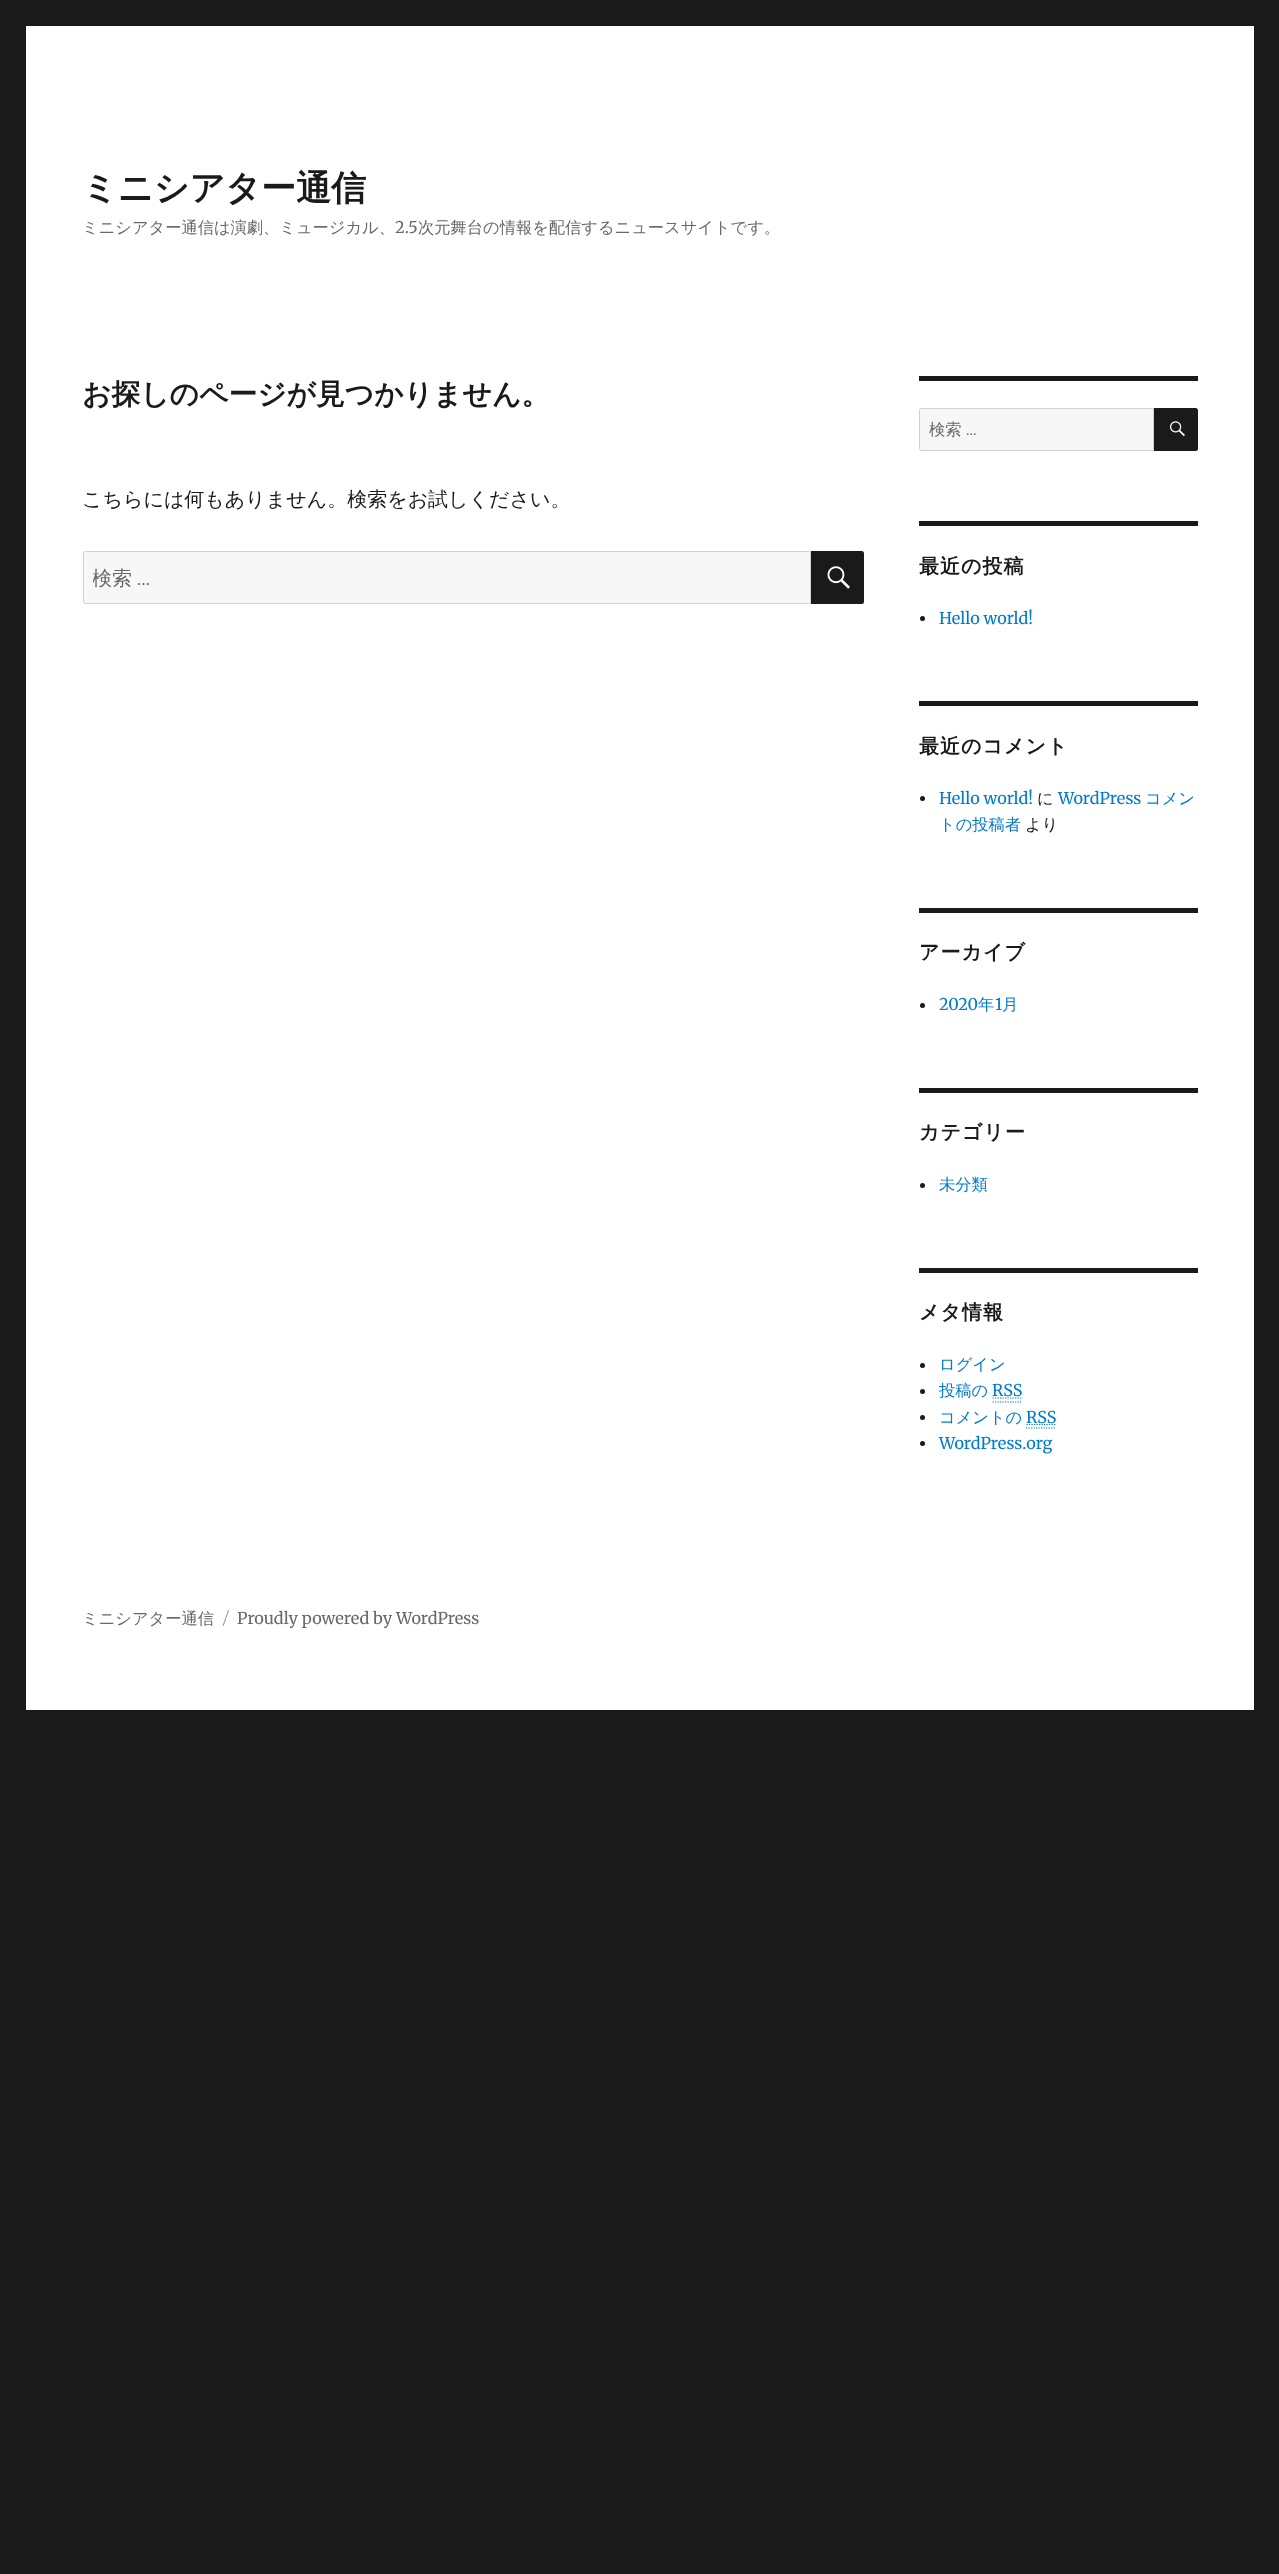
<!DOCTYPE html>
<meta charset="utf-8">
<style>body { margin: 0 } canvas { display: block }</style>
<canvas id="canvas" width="1279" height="2574"></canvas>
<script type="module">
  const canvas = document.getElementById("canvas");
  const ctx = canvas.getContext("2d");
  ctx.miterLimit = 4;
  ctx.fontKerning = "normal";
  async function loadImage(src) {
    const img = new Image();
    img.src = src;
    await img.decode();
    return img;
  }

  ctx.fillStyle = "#1a1a1a";
  ctx.fillRect(0, 0, 1279, 2574);
  ctx.fillStyle = "#ffffff";
  ctx.fillRect(26, 26, 1228, 1684);
  ctx.font = "bold 35px WenQuanYi Zen Hei";
  ctx.fillStyle = "#1a1a1a";
  ctx.fillText("ミニシアター通信", 82, 200);
  ctx.font = "500 16.25px WenQuanYi Zen Hei";
  ctx.fillStyle = "#686868";
  ctx.fillText("ミニシアター通信は演劇、ミュージカル、", 82, 233);
  ctx.font = "16.25px Merriweather";
  ctx.fillText("2.5", 395, 233);
  ctx.font = "500 16.25px WenQuanYi Zen Hei";
  ctx.fillText("次元舞台の情報を配信するニュースサイトです。", 418, 233);
  ctx.font = "bold 28.75px WenQuanYi Zen Hei";
  ctx.fillStyle = "#1a1a1a";
  ctx.fillText("お探しのページが見つかりません。", 82, 404);
  ctx.font = "500 20px WenQuanYi Zen Hei";
  ctx.fillText("こちらには何もありません。検索をお試しください。", 82, 506);
  ctx.fillStyle = "#f7f7f7";
  ctx.beginPath();
  ctx.roundRect(83.5, 551.5, 727, 52, [2, 0, 0, 2]);
  ctx.fill();
  ctx.strokeStyle = "#d1d1d1";
  ctx.stroke();
  ctx.save();
  ctx.beginPath();
  ctx.rect(93, 566, 703, 27);
  ctx.clip();
  ctx.fillStyle = "#686868";
  ctx.fillText("検索", 92, 585);
  ctx.restore();
  ctx.font = "20px Montserrat";
  ctx.fillStyle = "#686868";
  ctx.fillText("…", 137, 585);
  ctx.fillStyle = "#1a1a1a";
  ctx.beginPath();
  ctx.roundRect(811, 551, 53, 53, [0, 2.5, 2.5, 0]);
  ctx.fill();
  ctx.drawImage(await loadImage("img1.png"), 827, 566, 23, 23);
  ctx.fillRect(919, 376, 279, 5);
  ctx.fillStyle = "#f7f7f7";
  ctx.beginPath();
  ctx.roundRect(919.5, 408.5, 234, 42, [2, 0, 0, 2]);
  ctx.fill();
  ctx.stroke();
  ctx.font = "500 16.25px WenQuanYi Zen Hei";
  ctx.fillStyle = "#686868";
  ctx.fillText("検索", 929, 435);
  ctx.font = "16.25px Montserrat";
  ctx.fillText("…", 966, 435);
  ctx.fillStyle = "#1a1a1a";
  ctx.beginPath();
  ctx.roundRect(1154, 408, 44, 43, [0, 2.5, 2.5, 0]);
  ctx.fill();
  ctx.drawImage(await loadImage("img2.png"), 1170, 421, 15, 16);
  ctx.fillRect(919, 521, 279, 5);
  ctx.letterSpacing = "1px";
  ctx.font = "bold 20px WenQuanYi Zen Hei";
  ctx.fillText("最近の投稿", 919, 573);
  ctx.beginPath();
  ctx.arc(922.5, 618.5, 2.5, 0, Math.PI * 2);
  ctx.fill();
  ctx.letterSpacing = "0px";
  ctx.font = "16.25px Merriweather";
  ctx.fillStyle = "#007acc";
  ctx.fillText("Hello world!", 939, 624);
  ctx.fillStyle = "#1a1a1a";
  ctx.fillRect(919, 701, 279, 5);
  ctx.letterSpacing = "1px";
  ctx.font = "bold 20px WenQuanYi Zen Hei";
  ctx.fillText("最近のコメント", 919, 753);
  ctx.beginPath();
  ctx.arc(922.5, 798.5, 2.5, 0, Math.PI * 2);
  ctx.fill();
  ctx.letterSpacing = "0px";
  ctx.font = "16.25px Merriweather";
  ctx.fillStyle = "#007acc";
  ctx.fillText("Hello world!", 939, 804);
  ctx.font = "500 16.25px WenQuanYi Zen Hei";
  ctx.fillStyle = "#1a1a1a";
  ctx.fillText("に", 1037, 804);
  ctx.font = "16.25px Merriweather";
  ctx.fillStyle = "#007acc";
  ctx.fillText("WordPress", 1058, 804);
  ctx.font = "500 16.25px WenQuanYi Zen Hei";
  ctx.fillText("コメン", 1145, 804);
  ctx.fillText("トの投稿者", 939, 830);
  ctx.fillStyle = "#1a1a1a";
  ctx.fillText("より", 1025, 830);
  ctx.fillRect(919, 908, 279, 5);
  ctx.letterSpacing = "1px";
  ctx.font = "bold 20px WenQuanYi Zen Hei";
  ctx.fillText("アーカイブ", 919, 959);
  ctx.beginPath();
  ctx.arc(922.5, 1005.5, 2.5, 0, Math.PI * 2);
  ctx.fill();
  ctx.letterSpacing = "0px";
  ctx.font = "16.25px Merriweather";
  ctx.fillStyle = "#007acc";
  ctx.fillText("2020", 939, 1010);
  ctx.font = "500 16.25px WenQuanYi Zen Hei";
  ctx.fillText("年", 978, 1010);
  ctx.font = "16.25px Merriweather";
  ctx.fillText("1", 995, 1010);
  ctx.font = "500 16.25px WenQuanYi Zen Hei";
  ctx.fillText("月", 1002, 1010);
  ctx.fillStyle = "#1a1a1a";
  ctx.fillRect(919, 1088, 279, 5);
  ctx.letterSpacing = "1px";
  ctx.font = "bold 20px WenQuanYi Zen Hei";
  ctx.fillText("カテゴリー", 919, 1139);
  ctx.beginPath();
  ctx.arc(922.5, 1185.5, 2.5, 0, Math.PI * 2);
  ctx.fill();
  ctx.letterSpacing = "0px";
  ctx.font = "500 16.25px WenQuanYi Zen Hei";
  ctx.fillStyle = "#007acc";
  ctx.fillText("未分類", 939, 1190);
  ctx.fillStyle = "#1a1a1a";
  ctx.fillRect(919, 1268, 279, 5);
  ctx.letterSpacing = "1px";
  ctx.font = "bold 20px WenQuanYi Zen Hei";
  ctx.fillText("メタ情報", 919, 1319);
  ctx.beginPath();
  ctx.arc(922.5, 1365.5, 2.5, 0, Math.PI * 2);
  ctx.fill();
  ctx.letterSpacing = "0px";
  ctx.font = "500 16.25px WenQuanYi Zen Hei";
  ctx.fillStyle = "#007acc";
  ctx.fillText("ログイン", 939, 1370);
  ctx.fillStyle = "#1a1a1a";
  ctx.beginPath();
  ctx.arc(922.5, 1391.5, 2.5, 0, Math.PI * 2);
  ctx.fill();
  ctx.fillStyle = "#007acc";
  ctx.fillText("投稿の", 939, 1396);
  ctx.font = "16.25px Merriweather";
  ctx.fillText("RSS", 992, 1396);
  ctx.beginPath();
  ctx.moveTo(992.5, 1402);
  ctx.lineTo(1022.5, 1402);
  ctx.moveTo(992.5, 1398);
  ctx.lineTo(1022.5, 1398);
  ctx.strokeStyle = "#007acc";
  ctx.lineWidth = 1.2;
  ctx.setLineDash([1.25, 1.25]);
  ctx.stroke();
  ctx.fillStyle = "#1a1a1a";
  ctx.beginPath();
  ctx.arc(922.5, 1417.5, 2.5, 0, Math.PI * 2);
  ctx.fill();
  ctx.font = "500 16.25px WenQuanYi Zen Hei";
  ctx.fillStyle = "#007acc";
  ctx.fillText("コメントの", 939, 1423);
  ctx.beginPath();
  ctx.moveTo(1026, 1428);
  ctx.lineTo(1056, 1428);
  ctx.moveTo(1026.5, 1424.5);
  ctx.lineTo(1056.5, 1424.5);
  ctx.stroke();
  ctx.font = "16.25px Merriweather";
  ctx.fillText("RSS", 1026, 1423);
  ctx.fillStyle = "#1a1a1a";
  ctx.beginPath();
  ctx.arc(922.5, 1443.5, 2.5, 0, Math.PI * 2);
  ctx.fill();
  ctx.fillStyle = "#007acc";
  ctx.fillText("WordPress.org", 939, 1449);
  ctx.font = "500 16.25px WenQuanYi Zen Hei";
  ctx.fillStyle = "#686868";
  ctx.fillText("ミニシアター通信", 82, 1624);
  ctx.font = "16.25px Montserrat";
  ctx.fillStyle = "#959595";
  ctx.fillText("/", 223, 1624);
  ctx.font = "16.25px Merriweather";
  ctx.fillStyle = "#686868";
  ctx.fillText("Proudly powered by WordPress", 237, 1624);
</script>
